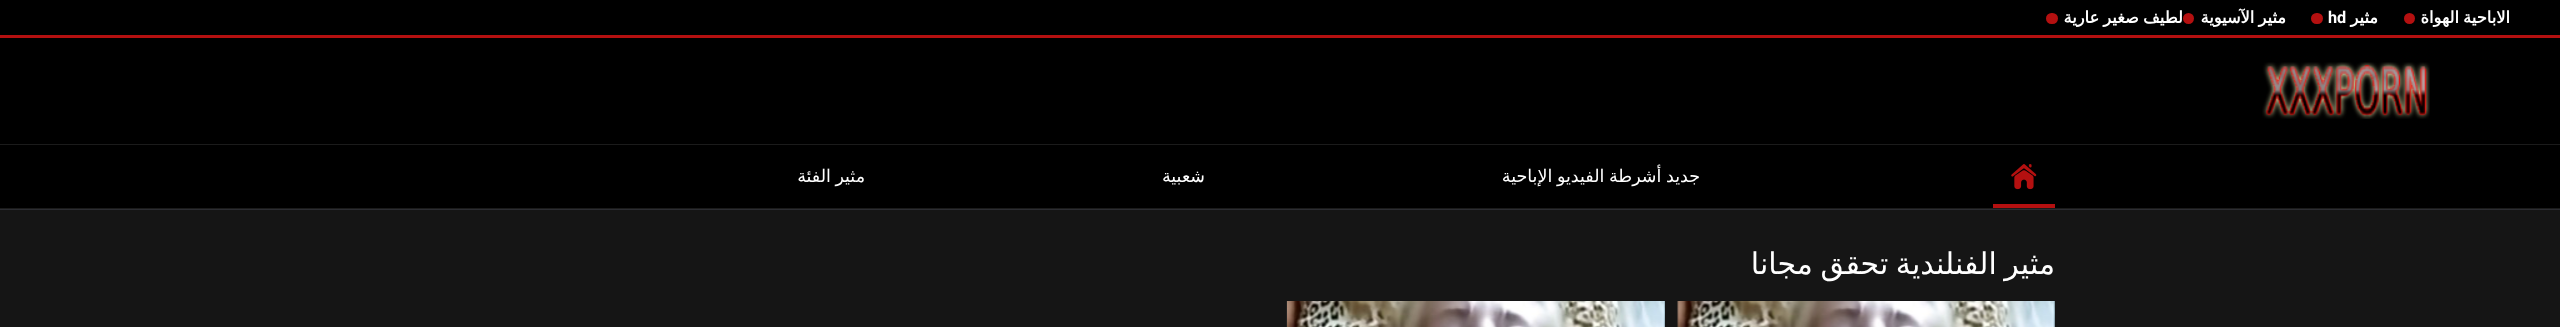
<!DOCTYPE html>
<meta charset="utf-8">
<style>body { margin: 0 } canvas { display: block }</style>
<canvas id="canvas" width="2560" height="327"></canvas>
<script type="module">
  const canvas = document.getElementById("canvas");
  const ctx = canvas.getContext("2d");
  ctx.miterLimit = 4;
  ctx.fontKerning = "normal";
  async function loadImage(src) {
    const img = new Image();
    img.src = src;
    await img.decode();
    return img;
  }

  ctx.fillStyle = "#000000";
  ctx.fillRect(0, 0, 2560, 327);
  ctx.fillStyle = "#b41010";
  ctx.fillRect(0, 35, 2560, 3);
  ctx.wordSpacing = "-1px";
  ctx.direction = "rtl";
  ctx.font = "bold 16.25px DejaVu Sans";
  ctx.fillStyle = "#ffffff";
  ctx.fillText("الاباحية الهواة", 2510, 23);
  ctx.fillStyle = "#b41010";
  ctx.beginPath();
  ctx.arc(2409.5, 18.5, 5.5, 0, Math.PI * 2);
  ctx.fill();
  ctx.wordSpacing = "0px";
  ctx.fillStyle = "#ffffff";
  ctx.fillText("مثير", 2378, 23);
  ctx.direction = "ltr";
  ctx.font = "bold 16.25px Roboto";
  ctx.fillText("hd", 2328, 23);
  ctx.fillStyle = "#b41010";
  ctx.beginPath();
  ctx.roundRect(2311, 13, 12, 11, 5.5);
  ctx.fill();
  ctx.wordSpacing = "-1px";
  ctx.direction = "rtl";
  ctx.font = "bold 16.25px DejaVu Sans";
  ctx.fillStyle = "#ffffff";
  ctx.fillText("مثير الآسيوية", 2286, 23);
  ctx.fillStyle = "#b41010";
  ctx.beginPath();
  ctx.arc(2188.5, 18.5, 5.5, 0, Math.PI * 2);
  ctx.fill();
  ctx.fillStyle = "#ffffff";
  ctx.fillText("لطيف صغير عارية", 2183, 23);
  ctx.fillStyle = "#b41010";
  ctx.beginPath();
  ctx.roundRect(2046, 13, 12, 11, 5.5);
  ctx.fill();
  ctx.fillStyle = "#151515";
  ctx.fillRect(0, 210, 2560, 117);
  ctx.drawImage(await loadImage("img1.png"), 2262, 62, 168, 57);
  ctx.fillStyle = "#2c2d32";
  ctx.fillRect(0, 209, 2560, 1);
  ctx.fillStyle = "#1b1b1b";
  ctx.fillRect(0, 144, 2560, 1);
  ctx.fillRect(0, 208, 2560, 1);
  ctx.drawImage(await loadImage("img2.png"), 2011, 164, 26, 26);
  ctx.fillStyle = "#b41010";
  ctx.fillRect(1993, 204, 62, 4);
  ctx.font = "17.5px DejaVu Sans";
  ctx.fillStyle = "#ffffff";
  ctx.fillText("جديد أشرطة الفيديو الإباحية", 1700, 182);
  ctx.wordSpacing = "0px";
  ctx.fillText("شعبية", 1205, 182);
  ctx.wordSpacing = "-1px";
  ctx.fillText("مثير الفئة", 865, 182);
  ctx.wordSpacing = "-2px";
  ctx.font = "30px DejaVu Sans";
  ctx.fillText("مثير الفنلندية تحقق مجانا", 2055, 274);
  ctx.drawImage(await loadImage("img3.png"), 1677, 301, 378, 26);
  ctx.fillStyle = "#212121";
  ctx.fillRect(1286, 301, 379, 26);
  ctx.drawImage(await loadImage("img4.png"), 1287, 301, 378, 26);
</script>
